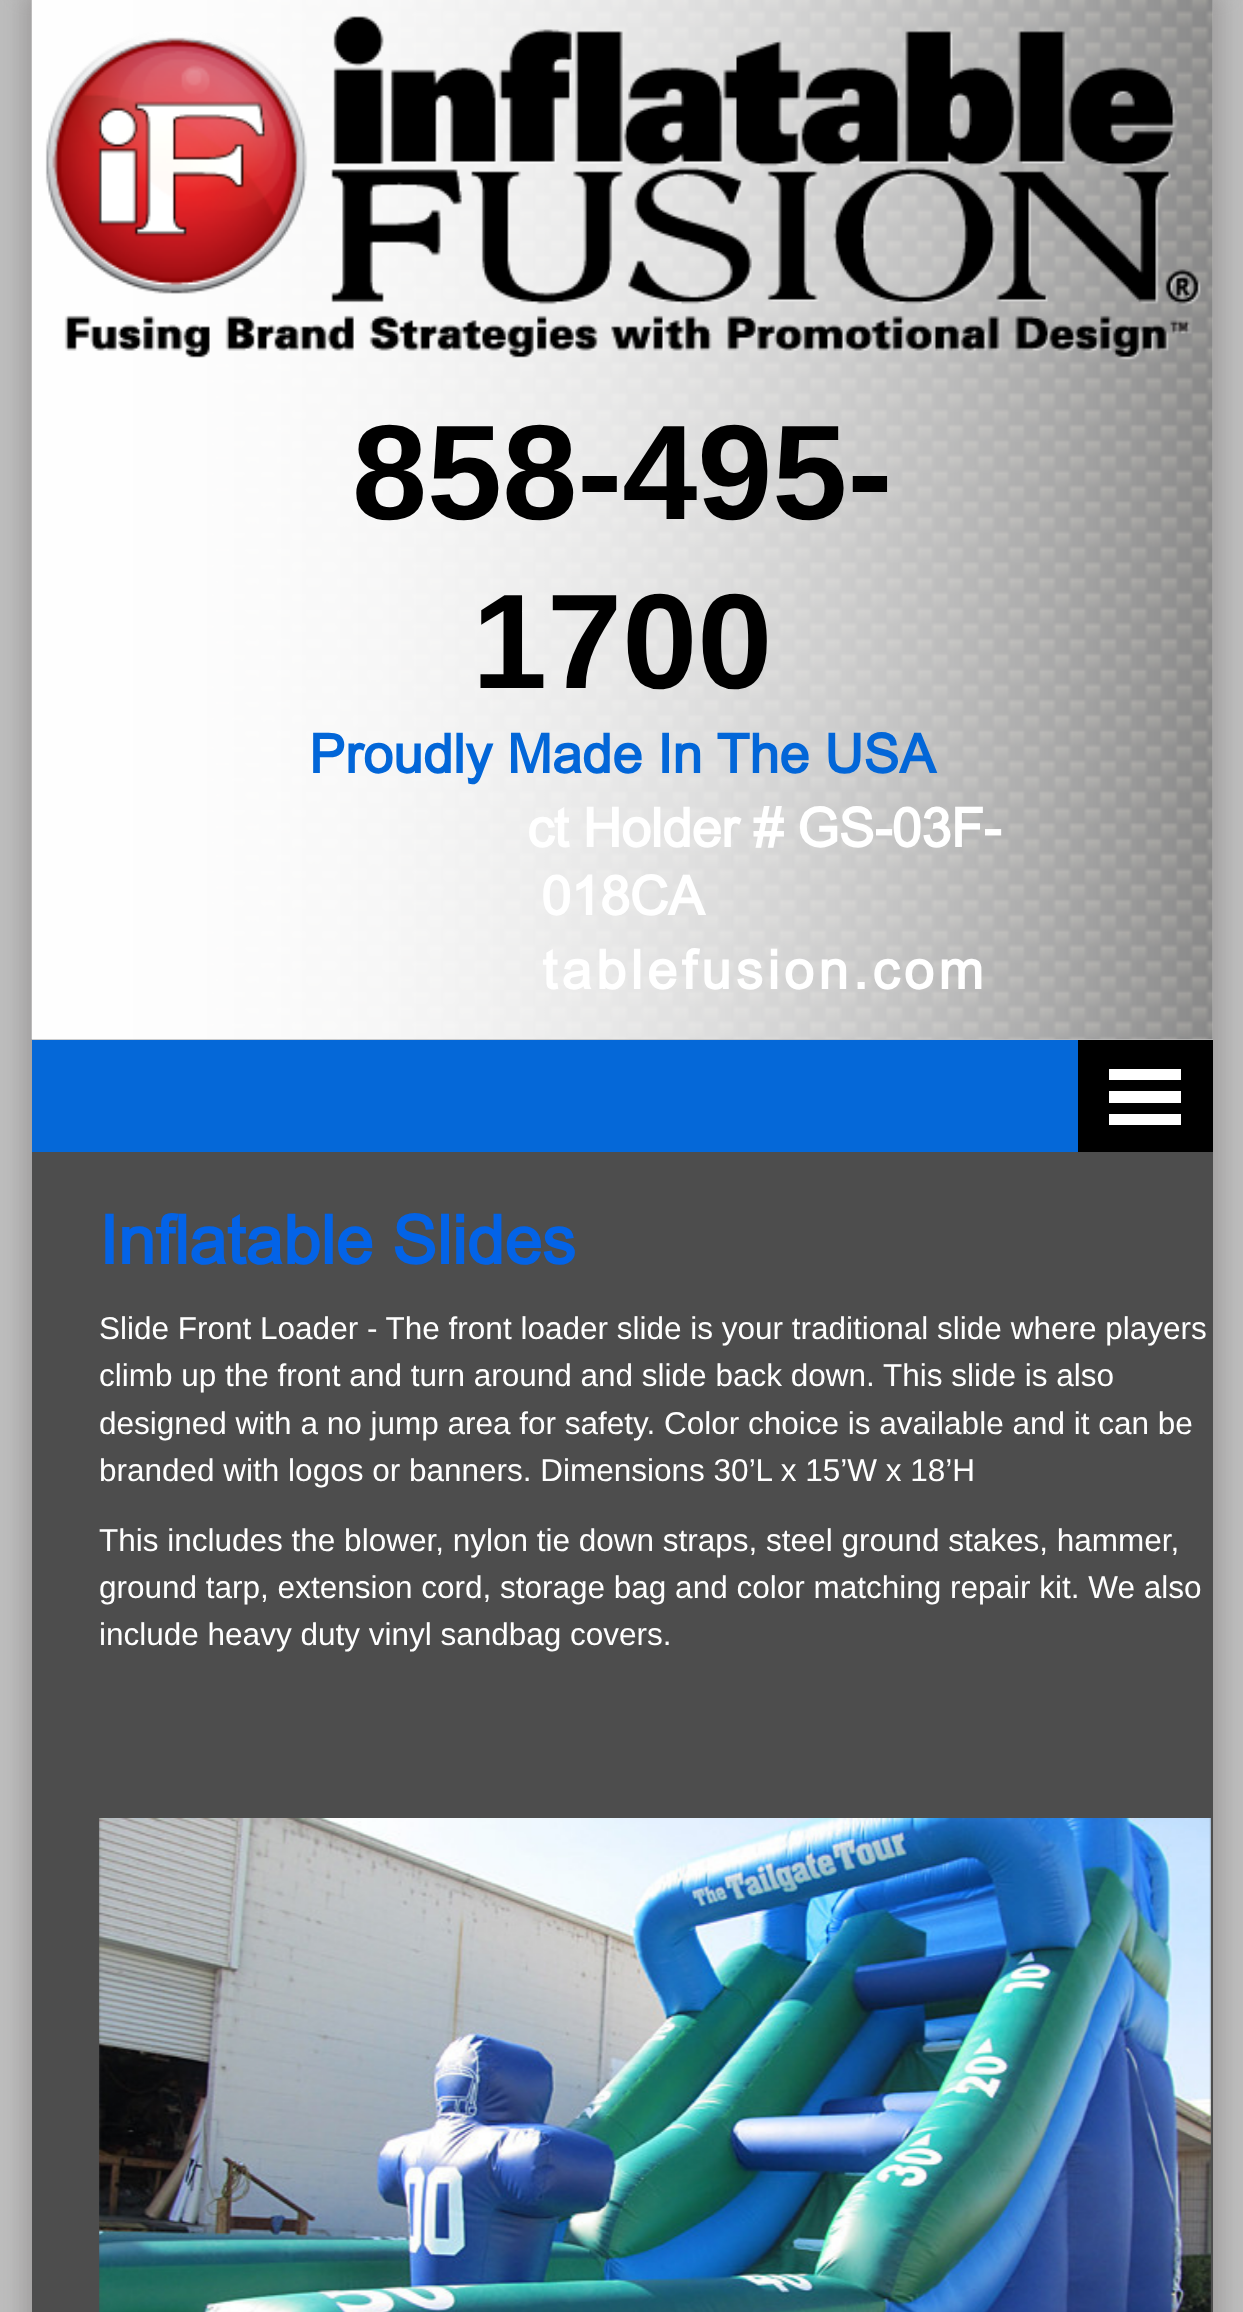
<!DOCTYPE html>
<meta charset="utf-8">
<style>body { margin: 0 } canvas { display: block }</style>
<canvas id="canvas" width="1243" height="2312"></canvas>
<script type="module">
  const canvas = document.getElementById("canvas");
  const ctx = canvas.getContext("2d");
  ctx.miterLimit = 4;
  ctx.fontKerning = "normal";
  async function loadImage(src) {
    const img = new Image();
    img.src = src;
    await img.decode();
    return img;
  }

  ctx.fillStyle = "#bdbdbd";
  ctx.fillRect(0, 0, 1243, 2312);
  ctx.fillStyle = "rgba(149, 147, 147, 0.75)";
  ctx.filter = "blur(11px)";
  ctx.beginPath();
  ctx.rect(23, -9, 1199, 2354);
  ctx.fill();
  ctx.filter = "none";
  ctx.fillStyle = "#bdbdbd";
  ctx.fillRect(32, 0, 1181, 1040);
  ctx.drawImage(await loadImage("img1.png"), 31, 0, 1182, 1040);
  ctx.drawImage(await loadImage("img2.png"), 45, 16, 1156, 344);
  ctx.font = "bold 135px Liberation Sans";
  ctx.fillStyle = "#000000";
  ctx.fillText("858-495-", 352, 519);
  ctx.fillText("1700", 472, 688);
  ctx.font = "bold 54px Arial";
  ctx.fillStyle = "#0266d8";
  ctx.fillText("Proudly Made In The USA", 309, 773);
  ctx.letterSpacing = "-0.5px";
  ctx.fillStyle = "#ffffff";
  ctx.fillText("ct Holder # GS-03F-", 527, 847);
  ctx.fillText("018CA", 541, 915);
  ctx.letterSpacing = "4.5px";
  ctx.fillText("tablefusion.com", 542, 989);
  ctx.fillStyle = "#0568d8";
  ctx.fillRect(32, 1040, 1046, 112);
  ctx.fillStyle = "#000000";
  ctx.fillRect(1078, 1040, 135, 112);
  ctx.fillStyle = "#ffffff";
  ctx.fillRect(1109, 1091, 72, 12);
  ctx.fillRect(1109, 1069, 72, 11);
  ctx.fillRect(1109, 1114, 72, 11);
  ctx.fillStyle = "#4d4d4d";
  ctx.fillRect(32, 1152, 1181, 1160);
  ctx.letterSpacing = "0px";
  ctx.font = "bold 67.5px Arial";
  ctx.fillStyle = "#0363e7";
  ctx.fillText("Inflatable Slides", 99, 1264);
  ctx.font = "31.5px Liberation Sans";
  ctx.fillStyle = "#ffffff";
  ctx.fillText("Slide Front Loader - The front loader slide is your traditional slide where players", 99, 1339);
  ctx.fillText("climb up the front and turn around and slide back down. This slide is also", 99, 1386);
  ctx.fillText("designed with a no jump area for safety. Color choice is available and it can be", 99, 1434);
  ctx.fillText("branded with logos or banners. Dimensions 30’L x 15’W x 18’H", 99, 1481);
  ctx.fillText("This includes the blower, nylon tie down straps, steel ground stakes, hammer,", 99, 1551);
  ctx.fillText("ground tarp, extension cord, storage bag and color matching repair kit. We also", 99, 1598);
  ctx.fillText("include heavy duty vinyl sandbag covers.", 99, 1645);
  ctx.drawImage(await loadImage("img3.png"), 99, 1818, 1112, 494);
</script>
